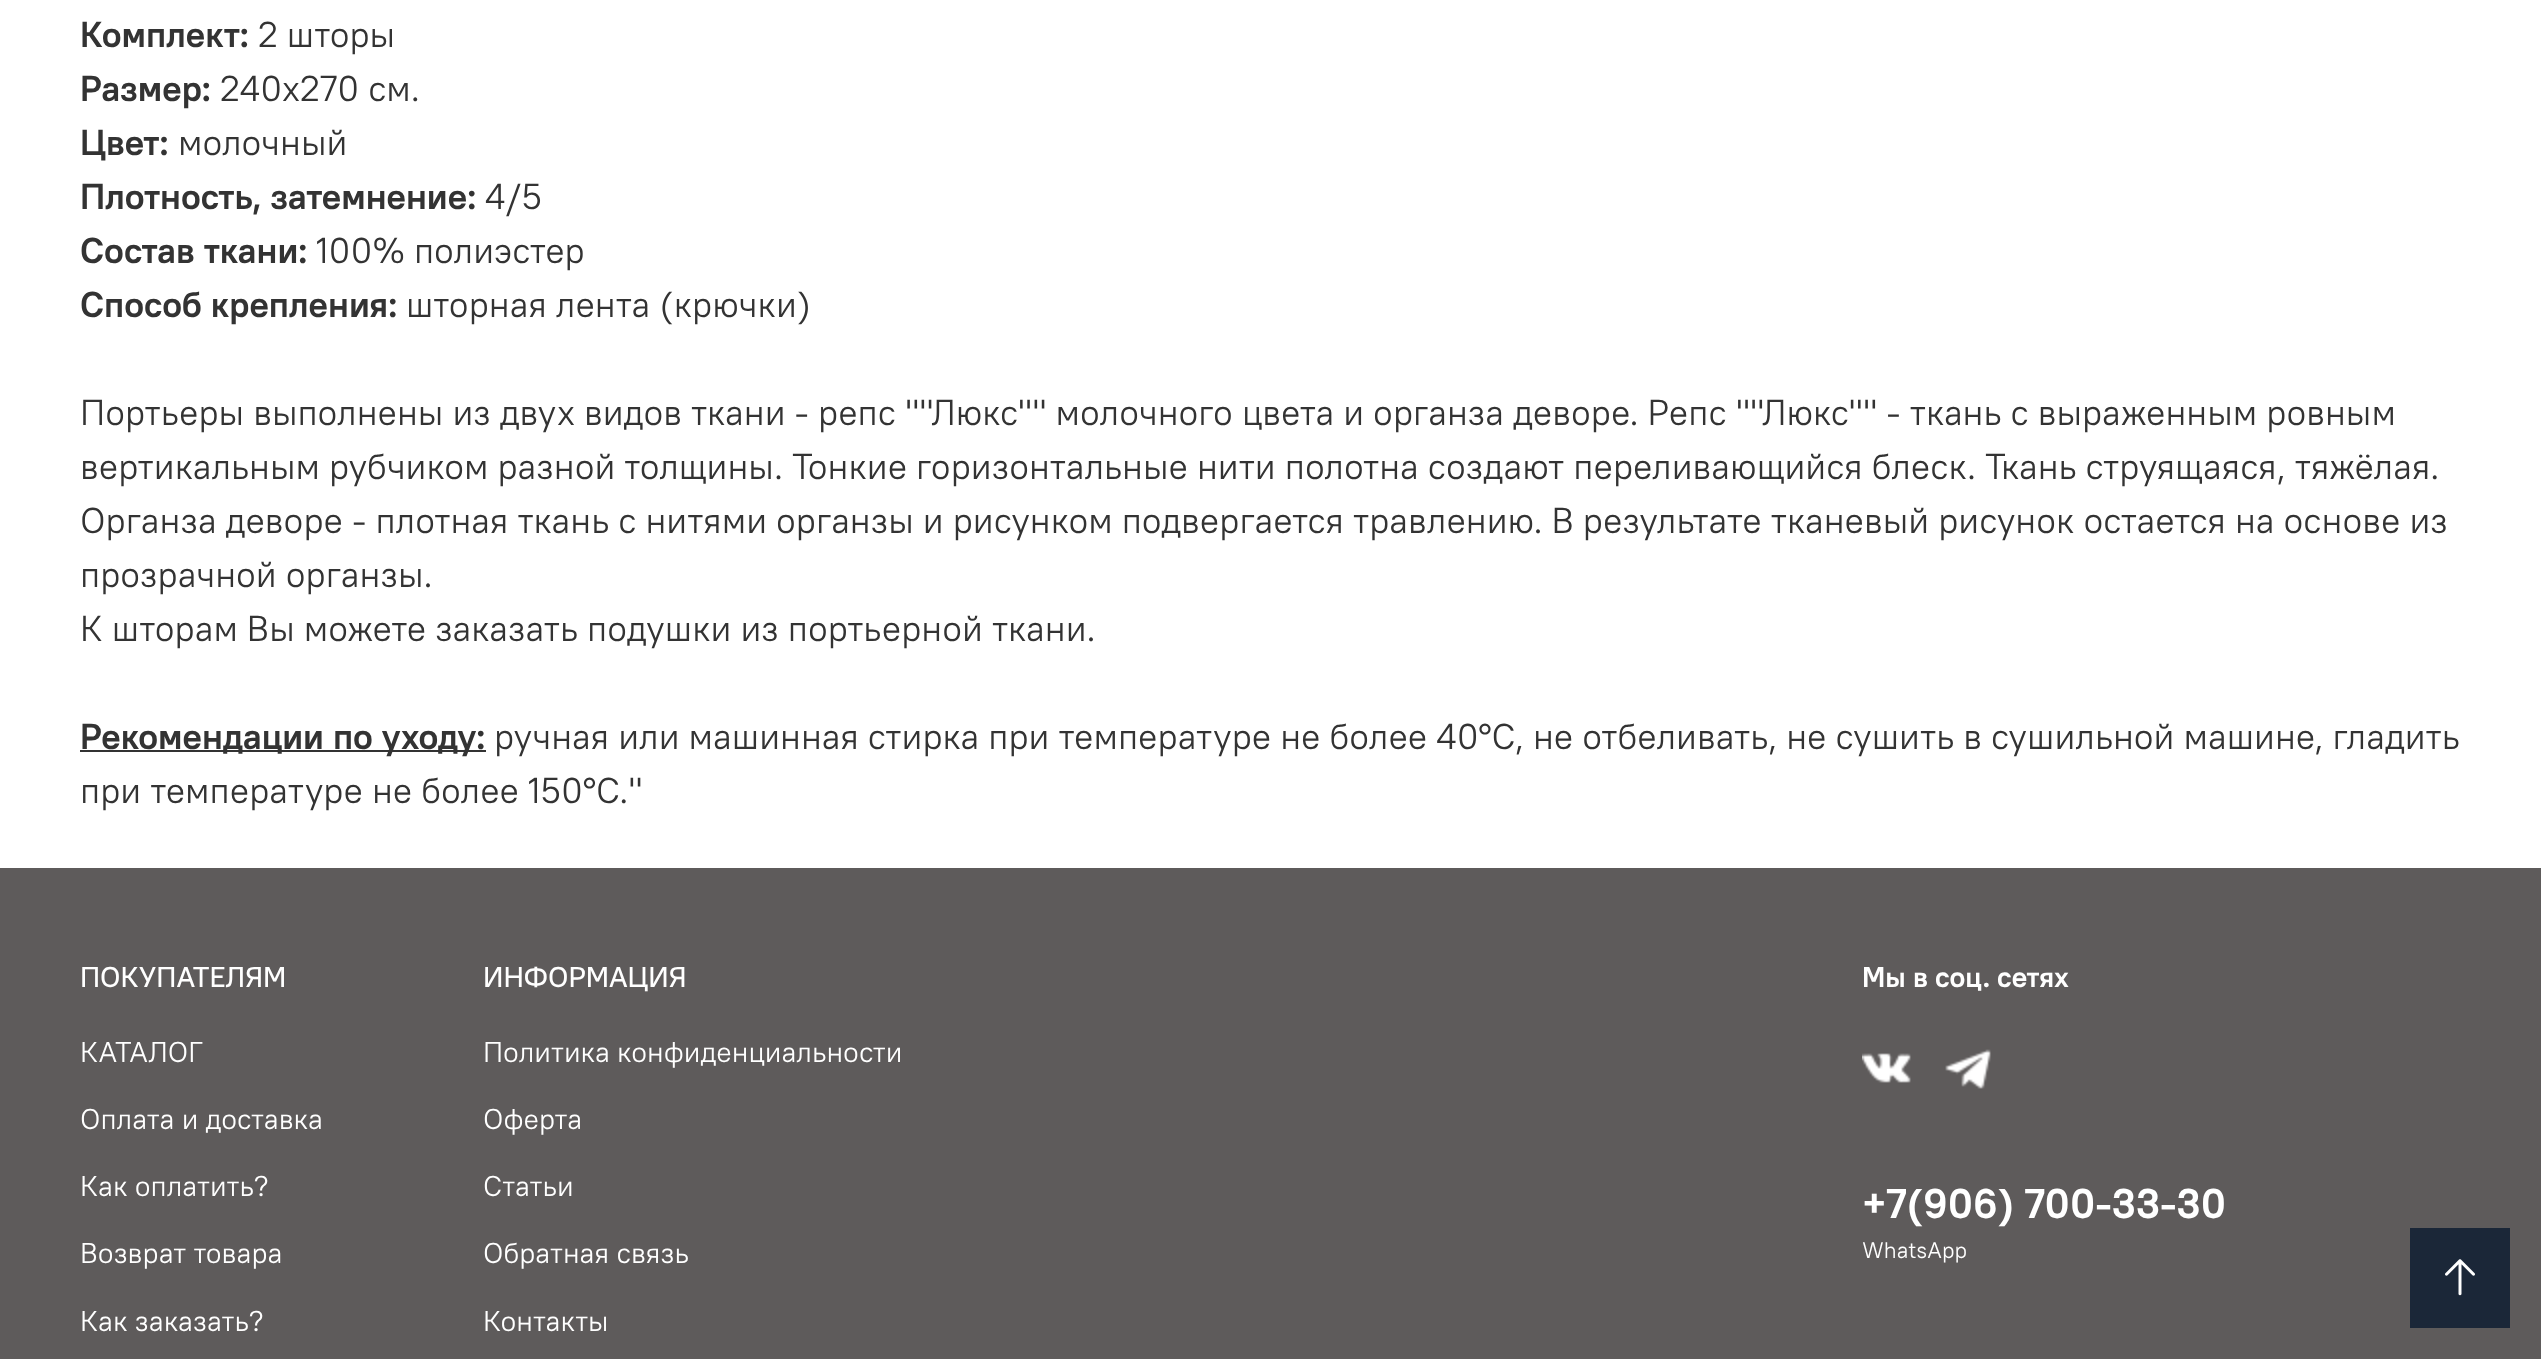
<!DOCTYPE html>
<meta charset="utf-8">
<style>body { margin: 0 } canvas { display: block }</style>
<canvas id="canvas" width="2541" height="1359"></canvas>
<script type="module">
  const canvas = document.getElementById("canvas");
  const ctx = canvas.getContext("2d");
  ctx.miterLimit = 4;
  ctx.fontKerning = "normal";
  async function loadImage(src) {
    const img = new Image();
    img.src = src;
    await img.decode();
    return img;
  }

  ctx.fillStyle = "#ffffff";
  ctx.fillRect(0, 0, 2541, 1359);
  ctx.font = "bold 36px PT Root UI";
  ctx.fillStyle = "#333333";
  ctx.fillText("Комплект:", 80, 47);
  ctx.font = "36px PT Root UI";
  ctx.fillText("2 шторы", 258, 47);
  ctx.font = "bold 36px PT Root UI";
  ctx.fillText("Размер:", 80, 101);
  ctx.font = "36px PT Root UI";
  ctx.fillText("240х270 см.", 220, 101);
  ctx.font = "bold 36px PT Root UI";
  ctx.fillText("Цвет:", 80, 155);
  ctx.font = "36px PT Root UI";
  ctx.fillText("молочный", 178, 155);
  ctx.font = "bold 36px PT Root UI";
  ctx.fillText("Плотность, затемнение:", 80, 209);
  ctx.font = "36px PT Root UI";
  ctx.fillText("4/5", 485, 209);
  ctx.font = "bold 36px PT Root UI";
  ctx.fillText("Состав ткани:", 80, 263);
  ctx.font = "36px PT Root UI";
  ctx.fillText("100% полиэстер", 316, 263);
  ctx.font = "bold 36px PT Root UI";
  ctx.fillText("Способ крепления:", 80, 317);
  ctx.font = "36px PT Root UI";
  ctx.fillText("шторная лента (крючки)", 406, 317);
  ctx.fillText("Портьеры выполнены из двух видов ткани - репс \"\"Люкс\"\" молочного цвета и органза деворе. Репс \"\"Люкс\"\" - ткань с выраженным ровным", 80, 425);
  ctx.fillText("вертикальным рубчиком разной толщины. Тонкие горизонтальные нити полотна создают переливающийся блеск. Ткань струящаяся, тяжёлая.", 80, 479);
  ctx.fillText("Органза деворе - плотная ткань с нитями органзы и рисунком подвергается травлению. В результате тканевый рисунок остается на основе из", 80, 533);
  ctx.fillText("прозрачной органзы.", 80, 587);
  ctx.fillText("К шторам Вы можете заказать подушки из портьерной ткани.", 80, 641);
  ctx.fillRect(80, 750, 406, 2);
  ctx.font = "bold 36px PT Root UI";
  ctx.fillText("Рекомендации по уходу:", 80, 749);
  ctx.font = "36px PT Root UI";
  ctx.fillText("ручная или машинная стирка при температуре не более 40°С, не отбеливать, не сушить в сушильной машине, гладить", 494, 749);
  ctx.fillText("при температуре не более 150°С.\"", 80, 803);
  ctx.fillStyle = "#5e5b5b";
  ctx.fillRect(0, 868, 2541, 491);
  ctx.font = "500 28.75px PT Root UI";
  ctx.fillStyle = "#ffffff";
  ctx.fillText("ПОКУПАТЕЛЯМ", 80, 987);
  ctx.font = "28.75px PT Root UI";
  ctx.fillText("КАТАЛОГ", 80, 1062);
  ctx.fillText("Оплата и доставка", 80, 1129);
  ctx.fillText("Как оплатить?", 80, 1196);
  ctx.fillText("Возврат товара", 80, 1263);
  ctx.fillText("Как заказать?", 80, 1331);
  ctx.font = "500 28.75px PT Root UI";
  ctx.fillText("ИНФОРМАЦИЯ", 483, 987);
  ctx.font = "28.75px PT Root UI";
  ctx.fillText("Политика конфиденциальности", 483, 1062);
  ctx.fillText("Оферта", 483, 1129);
  ctx.fillText("Статьи", 483, 1196);
  ctx.fillText("Обратная связь", 483, 1263);
  ctx.fillText("Контакты", 483, 1331);
  ctx.font = "bold 28.75px PT Root UI";
  ctx.fillText("Мы в соц. сетях", 1862, 987);
  ctx.drawImage(await loadImage("img1.png"), 1862, 1053, 49, 30);
  ctx.drawImage(await loadImage("img2.png"), 1945, 1049, 46, 40);
  ctx.font = "bold 41.5px PT Root UI";
  ctx.fillText("+7(906) 700-33-30", 1862, 1218);
  ctx.font = "22.5px PT Root UI";
  ctx.fillText("WhatsApp", 1862, 1258);
  ctx.fillStyle = "#1b2738";
  ctx.fillRect(2410, 1228, 100, 100);
  ctx.drawImage(await loadImage("img3.png"), 2445, 1259, 30, 37);
</script>
